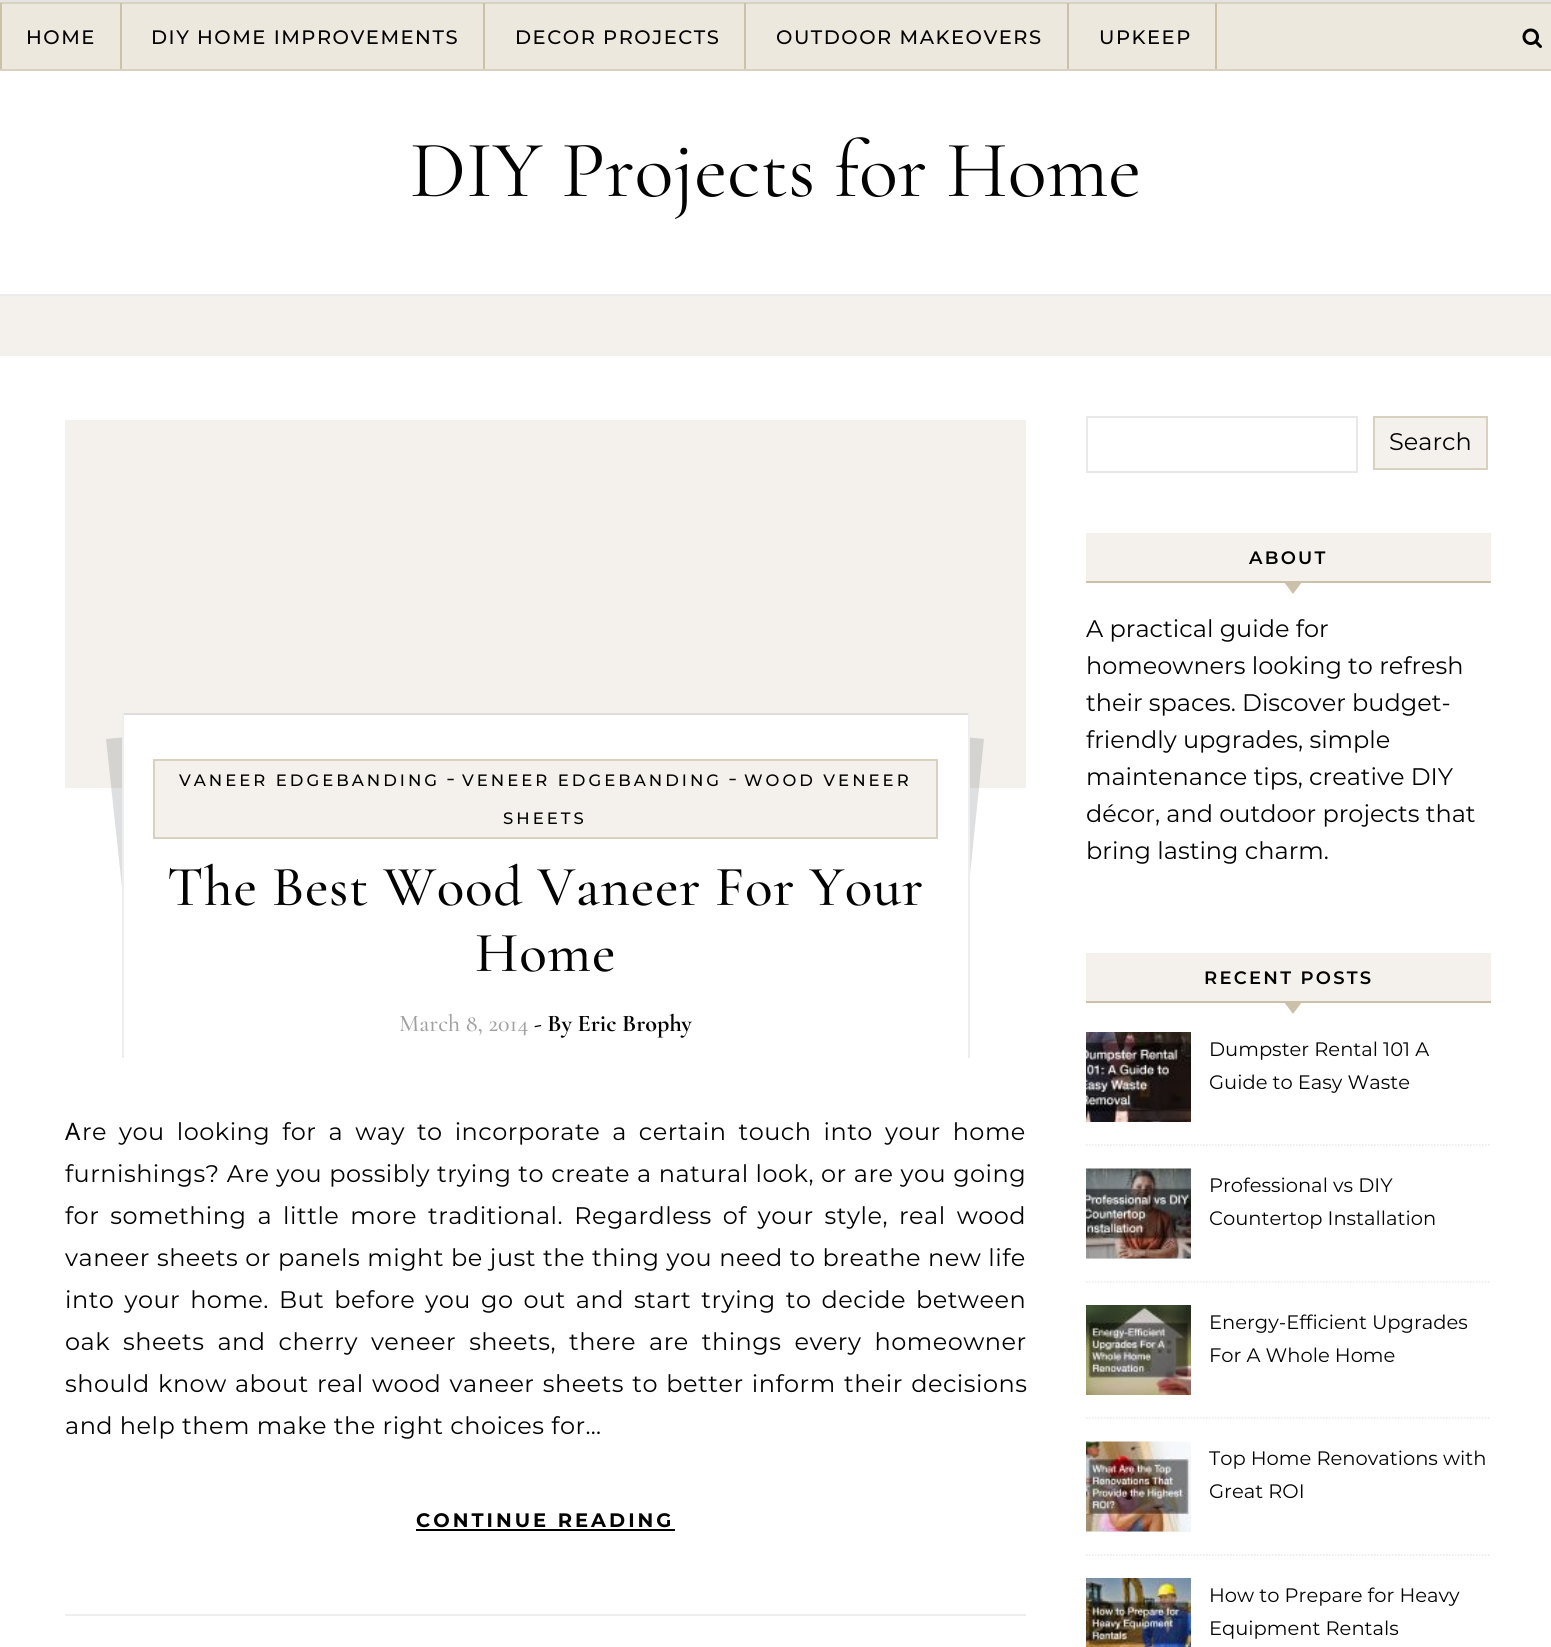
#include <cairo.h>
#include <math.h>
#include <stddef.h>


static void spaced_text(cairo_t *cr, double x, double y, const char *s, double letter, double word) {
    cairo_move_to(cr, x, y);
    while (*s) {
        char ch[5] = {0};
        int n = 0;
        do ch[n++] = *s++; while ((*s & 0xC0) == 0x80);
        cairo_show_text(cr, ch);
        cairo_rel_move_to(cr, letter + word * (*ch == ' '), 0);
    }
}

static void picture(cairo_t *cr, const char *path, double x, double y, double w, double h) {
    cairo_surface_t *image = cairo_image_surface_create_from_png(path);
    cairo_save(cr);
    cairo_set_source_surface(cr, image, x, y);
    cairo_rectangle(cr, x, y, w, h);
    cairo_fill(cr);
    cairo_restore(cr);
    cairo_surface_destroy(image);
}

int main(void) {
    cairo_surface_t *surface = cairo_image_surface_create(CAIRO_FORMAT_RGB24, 1551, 1647);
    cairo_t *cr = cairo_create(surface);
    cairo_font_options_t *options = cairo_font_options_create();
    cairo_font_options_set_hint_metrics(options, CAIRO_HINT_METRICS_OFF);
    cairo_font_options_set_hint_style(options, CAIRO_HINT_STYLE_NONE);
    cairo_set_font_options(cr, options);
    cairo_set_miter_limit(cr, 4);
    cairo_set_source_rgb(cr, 0.957, 0.945, 0.925);
    cairo_paint(cr);
    cairo_set_source_rgb(cr, 0.894, 0.894, 0.894);
    cairo_rectangle(cr, 0, 0, 1551, 2);
    cairo_fill(cr);
    cairo_set_source_rgb(cr, 0.929, 0.91, 0.871);
    cairo_rectangle(cr, 2, 4, 1549, 65);
    cairo_fill(cr);
    cairo_set_source_rgb(cr, 0.851, 0.82, 0.753);
    cairo_rectangle(cr, 0, 2, 1551, 2);
    cairo_fill(cr);
    cairo_rectangle(cr, 0, 69, 1551, 2);
    cairo_fill(cr);
    cairo_set_source_rgb(cr, 0.796, 0.753, 0.659);
    cairo_rectangle(cr, 120, 3, 2, 66);
    cairo_fill(cr);
    cairo_rectangle(cr, 0, 3, 2, 66);
    cairo_fill(cr);
    cairo_select_font_face(cr, "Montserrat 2 Thin", CAIRO_FONT_SLANT_NORMAL, CAIRO_FONT_WEIGHT_NORMAL);
    cairo_set_font_size(cr, 19.5);
    cairo_set_source_rgb(cr, 0.012, 0.012, 0.012);
    spaced_text(cr, 26, 44, "HOME", 1.5, 0);
    cairo_set_source_rgb(cr, 0.796, 0.753, 0.659);
    cairo_rectangle(cr, 483, 3, 2, 66);
    cairo_fill(cr);
    cairo_set_source_rgb(cr, 0.012, 0.012, 0.012);
    spaced_text(cr, 151, 44, "DIY HOME IMPROVEMENTS", 1.5, 0);
    cairo_set_source_rgb(cr, 0.796, 0.753, 0.659);
    cairo_rectangle(cr, 744, 3, 2, 66);
    cairo_fill(cr);
    cairo_set_source_rgb(cr, 0.012, 0.012, 0.012);
    spaced_text(cr, 515, 44, "DECOR PROJECTS", 1.5, 0);
    cairo_set_source_rgb(cr, 0.796, 0.753, 0.659);
    cairo_rectangle(cr, 1067, 3, 2, 66);
    cairo_fill(cr);
    cairo_set_source_rgb(cr, 0.012, 0.012, 0.012);
    spaced_text(cr, 776, 44, "OUTDOOR MAKEOVERS", 1.5, 0);
    cairo_set_source_rgb(cr, 0.796, 0.753, 0.659);
    cairo_rectangle(cr, 1215, 3, 2, 66);
    cairo_fill(cr);
    cairo_set_source_rgb(cr, 0.012, 0.012, 0.012);
    spaced_text(cr, 1099, 44, "UPKEEP", 1.5, 0);
    picture(cr, "img1.png", 1522, 28, 20, 20);
    cairo_set_source_rgb(cr, 1, 1, 1);
    cairo_rectangle(cr, 0, 71, 1551, 223);
    cairo_fill(cr);
    cairo_set_source_rgb(cr, 0.922, 0.922, 0.922);
    cairo_rectangle(cr, 0, 294, 1551, 2);
    cairo_fill(cr);
    cairo_select_font_face(cr, "Cormorant Garamond", CAIRO_FONT_SLANT_NORMAL, CAIRO_FONT_WEIGHT_NORMAL);
    cairo_set_font_size(cr, 81);
    cairo_set_source_rgb(cr, 0.012, 0.012, 0.012);
    cairo_move_to(cr, 410, 196);
    cairo_show_text(cr, "DIY Projects for Home");
    cairo_set_source_rgb(cr, 1, 1, 1);
    cairo_rectangle(cr, 0, 356, 1551, 1291);
    cairo_fill(cr);
    cairo_set_source_rgb(cr, 0.933, 0.933, 0.933);
    cairo_rectangle(cr, 65, 1614, 961, 2);
    cairo_fill(cr);
    cairo_set_source_rgb(cr, 0.957, 0.945, 0.925);
    cairo_rectangle(cr, 65, 420, 961, 368);
    cairo_fill(cr);
    cairo_set_source_rgba(cr, 0.153, 0.173, 0.192, 0.15);
    cairo_new_path(cr);
    cairo_move_to(cr, 106, 739);
    cairo_line_to(cr, 136, 736);
    cairo_line_to(cr, 159, 959);
    cairo_line_to(cr, 130, 962);
    cairo_close_path(cr);
    cairo_fill(cr);
    cairo_new_path(cr);
    cairo_move_to(cr, 955, 736);
    cairo_line_to(cr, 984, 739);
    cairo_line_to(cr, 961, 962);
    cairo_line_to(cr, 931, 959);
    cairo_close_path(cr);
    cairo_fill(cr);
    cairo_set_source_rgb(cr, 1, 1, 1);
    cairo_rectangle(cr, 124, 715, 844, 247);
    cairo_fill(cr);
    cairo_set_source_rgb(cr, 0.867, 0.867, 0.867);
    cairo_rectangle(cr, 122, 713, 847, 2);
    cairo_fill(cr);
    cairo_set_source_rgb(cr, 0.933, 0.933, 0.933);
    cairo_rectangle(cr, 968, 713, 2, 345);
    cairo_fill(cr);
    cairo_rectangle(cr, 122, 713, 2, 345);
    cairo_fill(cr);
    cairo_set_source_rgb(cr, 0.957, 0.945, 0.925);
    cairo_rectangle(cr, 154, 760, 783, 78);
    cairo_fill_preserve(cr);
    cairo_set_source_rgb(cr, 0.851, 0.82, 0.753);
    cairo_stroke(cr);
    cairo_select_font_face(cr, "Montserrat 2 Thin", CAIRO_FONT_SLANT_NORMAL, CAIRO_FONT_WEIGHT_NORMAL);
    cairo_set_font_size(cr, 16.5);
    cairo_set_source_rgb(cr, 0.012, 0.012, 0.012);
    spaced_text(cr, 179, 786, "VANEER EDGEBANDING", 3, 0);
    cairo_select_font_face(cr, "Montserrat Thin", CAIRO_FONT_SLANT_NORMAL, CAIRO_FONT_WEIGHT_NORMAL);
    cairo_set_font_size(cr, 24);
    cairo_move_to(cr, 446, 786);
    cairo_show_text(cr, "-");
    cairo_select_font_face(cr, "Montserrat 2 Thin", CAIRO_FONT_SLANT_NORMAL, CAIRO_FONT_WEIGHT_NORMAL);
    cairo_set_font_size(cr, 16.5);
    spaced_text(cr, 462, 786, "VENEER EDGEBANDING", 3, 0);
    cairo_select_font_face(cr, "Montserrat Thin", CAIRO_FONT_SLANT_NORMAL, CAIRO_FONT_WEIGHT_NORMAL);
    cairo_set_font_size(cr, 24);
    cairo_move_to(cr, 728, 786);
    cairo_show_text(cr, "-");
    cairo_select_font_face(cr, "Montserrat 2 Thin", CAIRO_FONT_SLANT_NORMAL, CAIRO_FONT_WEIGHT_NORMAL);
    cairo_set_font_size(cr, 16.5);
    spaced_text(cr, 744, 786, "WOOD VENEER", 3, 0);
    spaced_text(cr, 503, 824, "SHEETS", 3, 0);
    cairo_select_font_face(cr, "Cormorant Garamond Medium", CAIRO_FONT_SLANT_NORMAL, CAIRO_FONT_WEIGHT_NORMAL);
    cairo_set_font_size(cr, 57);
    spaced_text(cr, 167, 905, "The Best Wood Vaneer For Your", 0.75, 0);
    spaced_text(cr, 475, 971, "Home", 0.75, 0);
    cairo_set_font_size(cr, 24);
    cairo_set_source_rgb(cr, 0.631, 0.631, 0.631);
    cairo_move_to(cr, 399, 1031);
    cairo_show_text(cr, "March 8, 2014");
    cairo_select_font_face(cr, "Cormorant Garamond", CAIRO_FONT_SLANT_NORMAL, CAIRO_FONT_WEIGHT_BOLD);
    cairo_set_source_rgb(cr, 0.012, 0.012, 0.012);
    cairo_move_to(cr, 534, 1031);
    cairo_show_text(cr, "- By Eric Brophy");
    cairo_select_font_face(cr, "Noto Sans", CAIRO_FONT_SLANT_NORMAL, CAIRO_FONT_WEIGHT_NORMAL);
    spaced_text(cr, 65, 1140, "A", 0.48, 0);
    cairo_select_font_face(cr, "Montserrat Thin", CAIRO_FONT_SLANT_NORMAL, CAIRO_FONT_WEIGHT_NORMAL);
    spaced_text(cr, 82, 1140, "re you looking for a way to incorporate a certain touch into your home", 0.48, 5.25);
    spaced_text(cr, 65, 1182, "furnishings? Are you possibly trying to create a natural look, or are you going", 0.48, 0.25);
    spaced_text(cr, 65, 1224, "for something a little more traditional. Regardless of your style, real wood", 0.48, 4.25);
    spaced_text(cr, 65, 1266, "vaneer sheets or panels might be just the thing you need to breathe new life", 0.48, 0.3);
    spaced_text(cr, 65, 1308, "into your home. But before you go out and start trying to decide between", 0.48, 3.25);
    spaced_text(cr, 65, 1350, "oak sheets and cherry veneer sheets, there are things every homeowner", 0.48, 6.25);
    spaced_text(cr, 65, 1392, "should know about real wood vaneer sheets to better inform their decisions", 0.48, 1.5);
    spaced_text(cr, 65, 1434, "and help them make the right choices for…", 0.48, 0);
    cairo_select_font_face(cr, "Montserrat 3 Thin", CAIRO_FONT_SLANT_NORMAL, CAIRO_FONT_WEIGHT_NORMAL);
    cairo_set_font_size(cr, 19.5);
    spaced_text(cr, 416, 1527, "CONTINUE READING", 3, 0);
    cairo_set_source_rgb(cr, 0.004, 0.004, 0.004);
    cairo_rectangle(cr, 416, 1529, 259, 2);
    cairo_fill(cr);
    cairo_rectangle(cr, 1087, 417, 270, 55);
    cairo_set_source_rgb(cr, 0.91, 0.91, 0.91);
    cairo_stroke(cr);
    cairo_set_source_rgb(cr, 0.957, 0.945, 0.925);
    cairo_rectangle(cr, 1374, 417, 113, 52);
    cairo_fill_preserve(cr);
    cairo_set_source_rgb(cr, 0.851, 0.82, 0.753);
    cairo_stroke(cr);
    cairo_select_font_face(cr, "Montserrat Thin", CAIRO_FONT_SLANT_NORMAL, CAIRO_FONT_WEIGHT_NORMAL);
    cairo_set_font_size(cr, 24);
    cairo_set_source_rgb(cr, 0.012, 0.012, 0.012);
    cairo_move_to(cr, 1389, 450);
    cairo_show_text(cr, "Search");
    cairo_set_source_rgb(cr, 0.957, 0.945, 0.925);
    cairo_rectangle(cr, 1086, 533, 405, 48);
    cairo_fill(cr);
    cairo_set_source_rgb(cr, 0.796, 0.757, 0.667);
    cairo_rectangle(cr, 1086, 581, 405, 2);
    cairo_fill(cr);
    cairo_select_font_face(cr, "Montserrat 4 Thin", CAIRO_FONT_SLANT_NORMAL, CAIRO_FONT_WEIGHT_NORMAL);
    cairo_set_font_size(cr, 18);
    cairo_set_source_rgb(cr, 0.012, 0.012, 0.012);
    spaced_text(cr, 1249, 564, "ABOUT", 2.25, 0);
    cairo_set_source_rgb(cr, 0.796, 0.757, 0.667);
    cairo_new_path(cr);
    cairo_move_to(cr, 1284, 582);
    cairo_line_to(cr, 1302, 582);
    cairo_line_to(cr, 1293, 594);
    cairo_close_path(cr);
    cairo_fill(cr);
    cairo_select_font_face(cr, "Montserrat Thin", CAIRO_FONT_SLANT_NORMAL, CAIRO_FONT_WEIGHT_NORMAL);
    cairo_set_font_size(cr, 24);
    cairo_set_source_rgb(cr, 0.012, 0.012, 0.012);
    cairo_move_to(cr, 1086, 637);
    cairo_show_text(cr, "A practical guide for");
    cairo_move_to(cr, 1086, 674);
    cairo_show_text(cr, "homeowners looking to refresh");
    cairo_move_to(cr, 1086, 711);
    cairo_show_text(cr, "their spaces. Discover budget-");
    cairo_move_to(cr, 1086, 748);
    cairo_show_text(cr, "friendly upgrades, simple");
    cairo_move_to(cr, 1086, 785);
    cairo_show_text(cr, "maintenance tips, creative DIY");
    cairo_move_to(cr, 1086, 822);
    cairo_show_text(cr, "décor, and outdoor projects that");
    cairo_move_to(cr, 1086, 859);
    cairo_show_text(cr, "bring lasting charm.");
    cairo_set_source_rgb(cr, 0.957, 0.945, 0.925);
    cairo_rectangle(cr, 1086, 953, 405, 48);
    cairo_fill(cr);
    cairo_set_source_rgb(cr, 0.796, 0.757, 0.667);
    cairo_rectangle(cr, 1086, 1001, 405, 2);
    cairo_fill(cr);
    cairo_select_font_face(cr, "Montserrat 4 Thin", CAIRO_FONT_SLANT_NORMAL, CAIRO_FONT_WEIGHT_NORMAL);
    cairo_set_font_size(cr, 18);
    cairo_set_source_rgb(cr, 0.012, 0.012, 0.012);
    spaced_text(cr, 1204, 984, "RECENT POSTS", 2.25, 0);
    cairo_set_source_rgb(cr, 0.796, 0.757, 0.667);
    cairo_new_path(cr);
    cairo_move_to(cr, 1284, 1002);
    cairo_line_to(cr, 1302, 1002);
    cairo_line_to(cr, 1293, 1014);
    cairo_close_path(cr);
    cairo_fill(cr);
    cairo_new_path(cr);
    cairo_move_to(cr, 1086, 1145);
    cairo_line_to(cr, 1491, 1145);
    cairo_set_source_rgb(cr, 0.91, 0.91, 0.91);
    cairo_set_line_width(cr, 1.5);
    cairo_set_dash(cr, (double[]){1.5, 1.5}, 2, 0);
    cairo_stroke(cr);
    picture(cr, "img2.png", 1086, 1032, 105, 90);
    cairo_select_font_face(cr, "Montserrat Thin", CAIRO_FONT_SLANT_NORMAL, CAIRO_FONT_WEIGHT_NORMAL);
    cairo_set_font_size(cr, 19.5);
    cairo_set_source_rgb(cr, 0.012, 0.012, 0.012);
    cairo_move_to(cr, 1209, 1056);
    cairo_show_text(cr, "Dumpster Rental 101 A");
    cairo_move_to(cr, 1209, 1089);
    cairo_show_text(cr, "Guide to Easy Waste");
    cairo_new_path(cr);
    cairo_move_to(cr, 1086, 1282);
    cairo_line_to(cr, 1491, 1282);
    cairo_set_source_rgb(cr, 0.91, 0.91, 0.91);
    cairo_stroke(cr);
    cairo_set_source_rgb(cr, 0.949, 0.949, 0.949);
    cairo_rectangle(cr, 1086, 1258, 105, 1);
    cairo_fill(cr);
    picture(cr, "img3.png", 1086, 1168, 105, 91);
    cairo_set_source_rgb(cr, 0.012, 0.012, 0.012);
    cairo_move_to(cr, 1209, 1192);
    cairo_show_text(cr, "Professional vs DIY");
    cairo_move_to(cr, 1209, 1225);
    cairo_show_text(cr, "Countertop Installation");
    cairo_new_path(cr);
    cairo_move_to(cr, 1086, 1418);
    cairo_line_to(cr, 1491, 1418);
    cairo_set_source_rgb(cr, 0.91, 0.91, 0.91);
    cairo_stroke(cr);
    picture(cr, "img4.png", 1086, 1305, 105, 90);
    cairo_set_source_rgb(cr, 0.012, 0.012, 0.012);
    cairo_move_to(cr, 1209, 1329);
    cairo_show_text(cr, "Energy-Efficient Upgrades");
    cairo_move_to(cr, 1209, 1362);
    cairo_show_text(cr, "For A Whole Home");
    cairo_new_path(cr);
    cairo_move_to(cr, 1086, 1555);
    cairo_line_to(cr, 1491, 1555);
    cairo_set_source_rgb(cr, 0.91, 0.91, 0.91);
    cairo_stroke(cr);
    cairo_set_source_rgb(cr, 0.949, 0.949, 0.949);
    cairo_rectangle(cr, 1086, 1531, 105, 1);
    cairo_fill(cr);
    picture(cr, "img5.png", 1086, 1441, 105, 91);
    cairo_set_source_rgb(cr, 0.012, 0.012, 0.012);
    cairo_move_to(cr, 1209, 1465);
    cairo_show_text(cr, "Top Home Renovations with");
    cairo_move_to(cr, 1209, 1498);
    cairo_show_text(cr, "Great ROI");
    picture(cr, "img6.png", 1086, 1578, 105, 69);
    cairo_move_to(cr, 1209, 1602);
    cairo_show_text(cr, "How to Prepare for Heavy");
    cairo_move_to(cr, 1209, 1635);
    cairo_show_text(cr, "Equipment Rentals");
    cairo_surface_write_to_png(surface, "page.png");
    cairo_font_options_destroy(options);
    cairo_destroy(cr);
    cairo_surface_destroy(surface);
    return 0;
}
